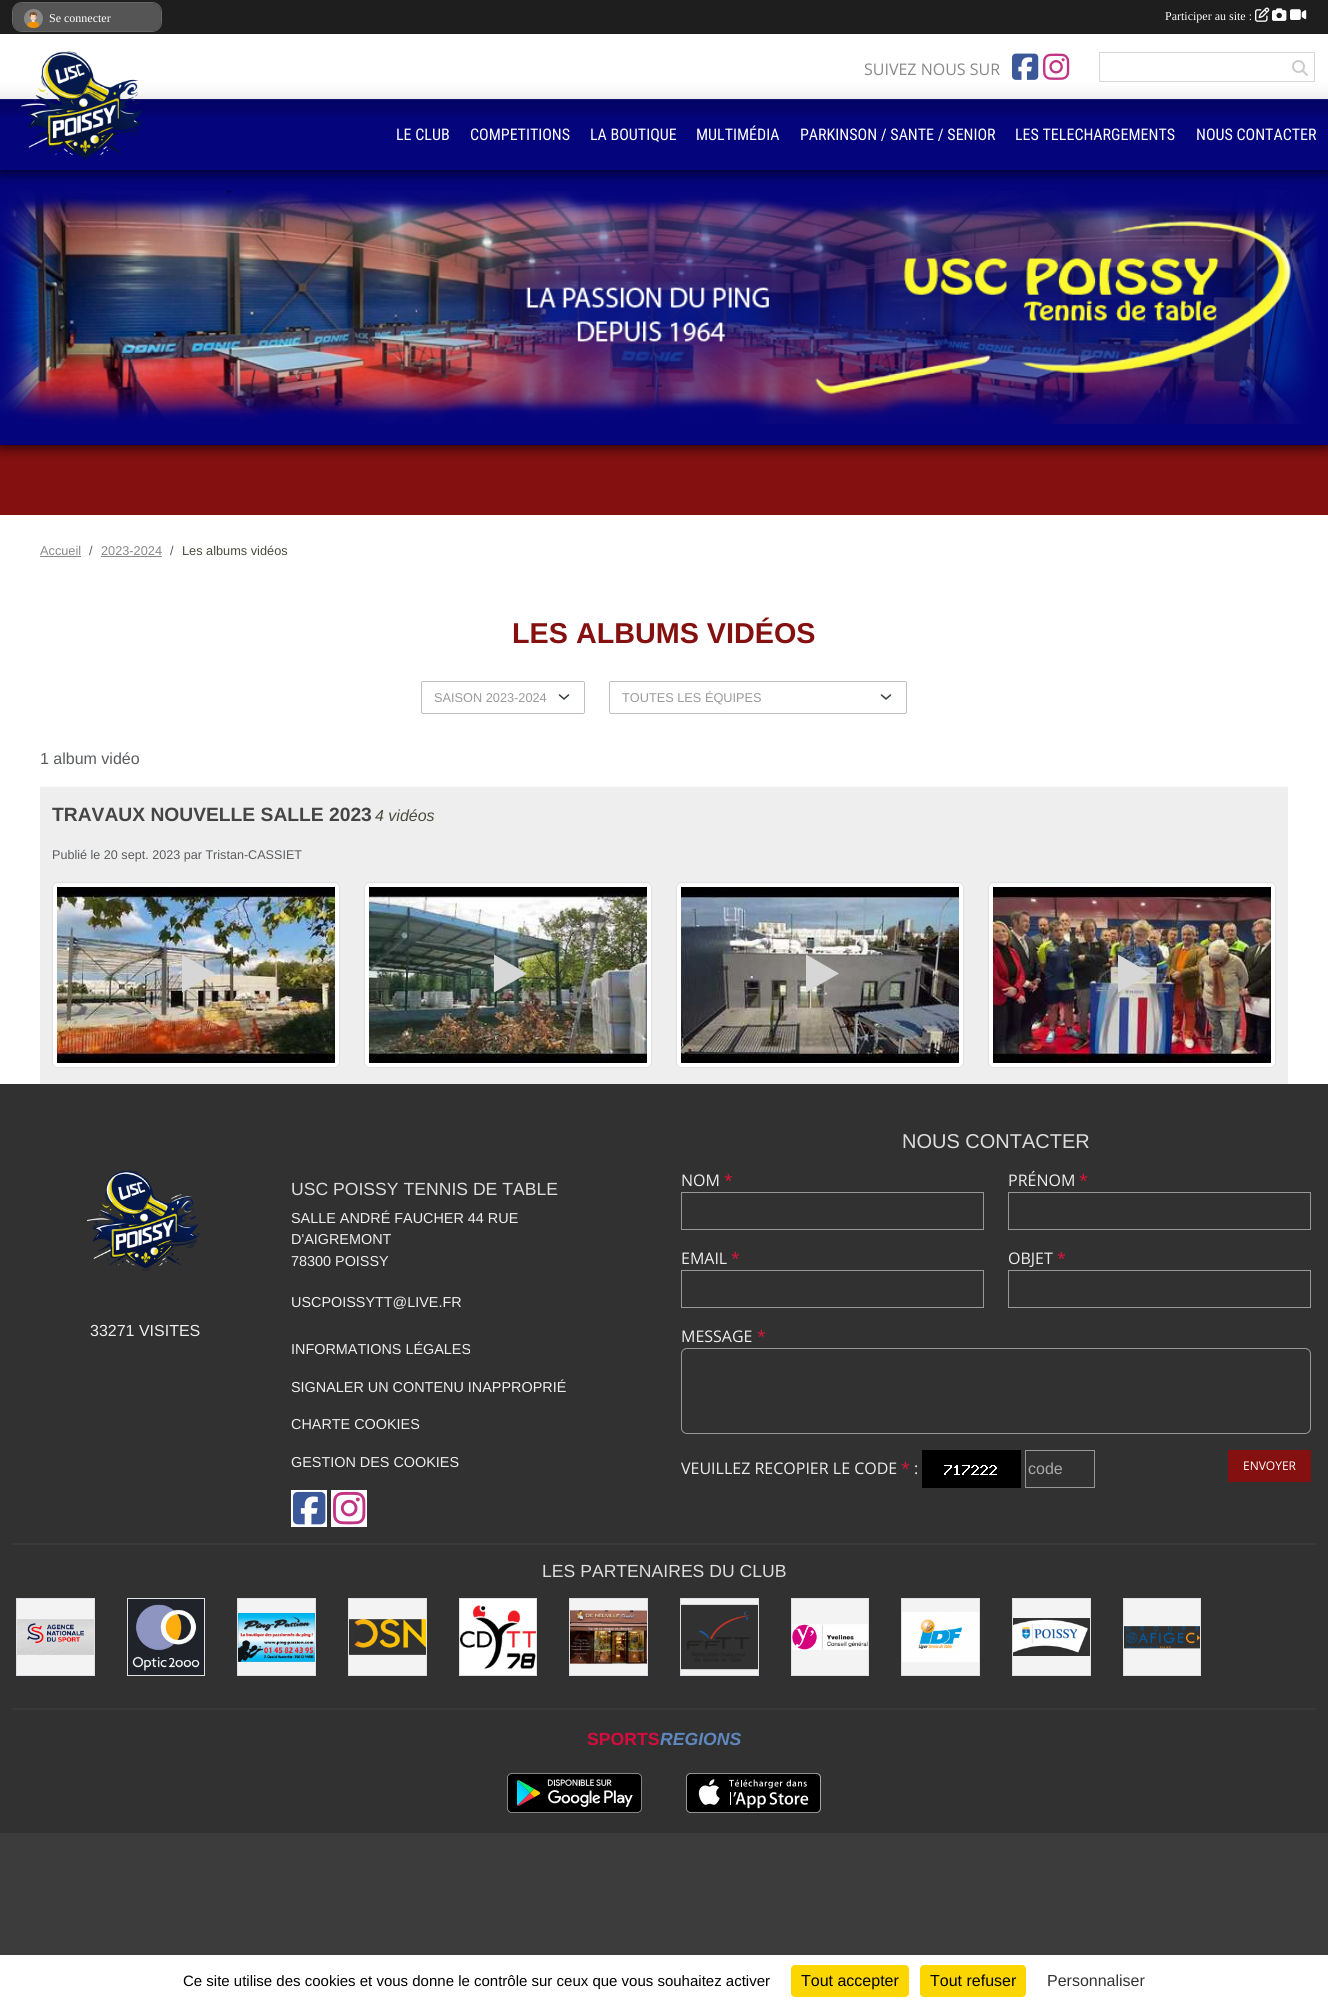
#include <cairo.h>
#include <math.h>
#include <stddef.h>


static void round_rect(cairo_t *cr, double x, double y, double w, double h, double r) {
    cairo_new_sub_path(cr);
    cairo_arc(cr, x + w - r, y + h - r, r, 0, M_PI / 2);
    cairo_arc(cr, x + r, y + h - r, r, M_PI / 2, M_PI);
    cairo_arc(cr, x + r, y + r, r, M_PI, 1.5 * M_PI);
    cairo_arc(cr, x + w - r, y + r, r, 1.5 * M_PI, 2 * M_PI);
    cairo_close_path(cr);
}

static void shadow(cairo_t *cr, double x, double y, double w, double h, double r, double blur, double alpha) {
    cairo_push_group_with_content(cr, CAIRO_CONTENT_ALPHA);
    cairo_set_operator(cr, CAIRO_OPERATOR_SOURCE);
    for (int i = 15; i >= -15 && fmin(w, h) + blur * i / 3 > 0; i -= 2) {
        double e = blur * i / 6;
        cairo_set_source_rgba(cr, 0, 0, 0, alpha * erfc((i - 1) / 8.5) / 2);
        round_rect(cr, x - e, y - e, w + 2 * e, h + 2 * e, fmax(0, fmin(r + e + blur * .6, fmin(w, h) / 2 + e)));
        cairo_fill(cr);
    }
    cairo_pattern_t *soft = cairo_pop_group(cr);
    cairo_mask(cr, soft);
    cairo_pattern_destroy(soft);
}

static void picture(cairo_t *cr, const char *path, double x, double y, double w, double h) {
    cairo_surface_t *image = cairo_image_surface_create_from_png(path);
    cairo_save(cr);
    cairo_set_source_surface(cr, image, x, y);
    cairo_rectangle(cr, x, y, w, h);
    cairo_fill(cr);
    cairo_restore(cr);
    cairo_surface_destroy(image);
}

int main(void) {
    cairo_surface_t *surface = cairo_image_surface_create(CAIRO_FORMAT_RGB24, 1328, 2007);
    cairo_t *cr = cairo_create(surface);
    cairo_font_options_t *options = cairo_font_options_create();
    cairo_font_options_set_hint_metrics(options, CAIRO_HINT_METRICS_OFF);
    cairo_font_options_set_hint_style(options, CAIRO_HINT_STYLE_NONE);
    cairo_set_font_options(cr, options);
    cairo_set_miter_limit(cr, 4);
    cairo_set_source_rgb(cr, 0.235, 0.235, 0.239);
    cairo_paint(cr);
    cairo_set_source_rgb(cr, 0.522, 0.063, 0.063);
    cairo_rectangle(cr, 0, 445, 1328, 70);
    cairo_fill(cr);
    cairo_set_source_rgb(cr, 0, 0, 0);
    shadow(cr, 0, 170, 1328, 275, 0, 7.5, 1);
    cairo_set_source_rgb(cr, 0.016, 0.016, 0.49);
    cairo_rectangle(cr, 0, 170, 1328, 275);
    cairo_fill(cr);
    picture(cr, "img10.png", 0, 191, 1318, 233);
    cairo_set_source_rgb(cr, 0, 0, 0);
    shadow(cr, 0, 34, 1328, 136, 0, 7.5, 1);
    cairo_set_source_rgb(cr, 0.118, 0.118, 0.118);
    cairo_rectangle(cr, 0, 0, 1328, 34);
    cairo_fill(cr);
    round_rect(cr, 12.5, 2.5, 149, 29, 9.5);
    cairo_set_source_rgb(cr, 0.4, 0.4, 0.4);
    cairo_set_line_width(cr, 1);
    cairo_stroke(cr);
    cairo_set_source_rgb(cr, 0.333, 0.333, 0.333);
    round_rect(cr, 13, 3, 148, 28, 9);
    cairo_fill(cr);
    picture(cr, "img1.png", 24, 9, 19, 19);
    cairo_select_font_face(cr, "Liberation Serif", CAIRO_FONT_SLANT_NORMAL, CAIRO_FONT_WEIGHT_NORMAL);
    cairo_set_font_size(cr, 12);
    cairo_set_source_rgb(cr, 1, 1, 1);
    cairo_move_to(cr, 49, 22);
    cairo_show_text(cr, "Se connecter");
    cairo_move_to(cr, 1165, 20);
    cairo_show_text(cr, "Participer au site :");
    picture(cr, "img2.png", 1255, 7, 15, 15);
    picture(cr, "img3.png", 1272, 8, 15, 13);
    picture(cr, "img4.png", 1290, 9, 17, 11);
    cairo_set_source_rgb(cr, 0.016, 0.016, 0.49);
    cairo_rectangle(cr, 0, 99, 1328, 71);
    cairo_fill(cr);
    picture(cr, "img5.png", 0, 34, 1328, 83);
    picture(cr, "img6.png", 21, 51, 123, 109);
    cairo_select_font_face(cr, "Open Sans", CAIRO_FONT_SLANT_NORMAL, CAIRO_FONT_WEIGHT_NORMAL);
    cairo_set_font_size(cr, 16);
    cairo_set_source_rgb(cr, 0.533, 0.533, 0.533);
    cairo_move_to(cr, 864, 75);
    cairo_show_text(cr, "SUIVEZ NOUS SUR");
    picture(cr, "img7.png", 1012, 53, 27, 27);
    picture(cr, "img8.png", 1043, 53, 27, 27);
    cairo_rectangle(cr, 1099.5, 52.5, 215, 29);
    cairo_set_source_rgb(cr, 0.847, 0.847, 0.847);
    cairo_stroke(cr);
    picture(cr, "img9.png", 1292, 60, 16, 16);
    cairo_select_font_face(cr, "Roboto Condensed", CAIRO_FONT_SLANT_NORMAL, CAIRO_FONT_WEIGHT_NORMAL);
    cairo_set_source_rgb(cr, 1, 1, 1);
    cairo_move_to(cr, 396, 140);
    cairo_show_text(cr, "LE CLUB");
    cairo_move_to(cr, 470, 140);
    cairo_show_text(cr, "COMPETITIONS");
    cairo_move_to(cr, 590, 140);
    cairo_show_text(cr, "LA BOUTIQUE");
    cairo_move_to(cr, 696, 140);
    cairo_show_text(cr, "MULTIMÉDIA");
    cairo_move_to(cr, 800, 140);
    cairo_show_text(cr, "PARKINSON / SANTE / SENIOR");
    cairo_move_to(cr, 1015, 140);
    cairo_show_text(cr, "LES TELECHARGEMENTS");
    cairo_move_to(cr, 1196, 140);
    cairo_show_text(cr, "NOUS CONTACTER");
    cairo_rectangle(cr, 0, 515, 1328, 569);
    cairo_fill(cr);
    cairo_select_font_face(cr, "Liberation Sans", CAIRO_FONT_SLANT_NORMAL, CAIRO_FONT_WEIGHT_NORMAL);
    cairo_set_font_size(cr, 12.75);
    cairo_set_source_rgb(cr, 0.533, 0.533, 0.533);
    cairo_move_to(cr, 40, 555);
    cairo_show_text(cr, "Accueil");
    cairo_rectangle(cr, 40, 556, 41, 1);
    cairo_fill(cr);
    cairo_set_source_rgb(cr, 0.349, 0.361, 0.373);
    cairo_move_to(cr, 89, 555);
    cairo_show_text(cr, "/");
    cairo_set_source_rgb(cr, 0.533, 0.533, 0.533);
    cairo_move_to(cr, 101, 555);
    cairo_show_text(cr, "2023-2024");
    cairo_rectangle(cr, 101, 556, 61, 1);
    cairo_fill(cr);
    cairo_set_source_rgb(cr, 0.349, 0.361, 0.373);
    cairo_move_to(cr, 170, 555);
    cairo_show_text(cr, "/");
    cairo_set_source_rgb(cr, 0.29, 0.29, 0.243);
    cairo_move_to(cr, 182, 555);
    cairo_show_text(cr, "Les albums vidéos");
    cairo_select_font_face(cr, "Liberation Sans", CAIRO_FONT_SLANT_NORMAL, CAIRO_FONT_WEIGHT_BOLD);
    cairo_set_font_size(cr, 28.75);
    cairo_set_source_rgb(cr, 0.522, 0.063, 0.063);
    cairo_move_to(cr, 512, 643);
    cairo_show_text(cr, "LES ALBUMS VIDÉOS");
    cairo_new_path(cr);
    cairo_move_to(cr, 559.5, 695);
    cairo_line_to(cr, 564, 699);
    cairo_line_to(cr, 568.5, 695);
    cairo_set_source_rgb(cr, 0.204, 0.227, 0.251);
    cairo_set_line_width(cr, 1.5);
    cairo_set_line_cap(cr, CAIRO_LINE_CAP_ROUND);
    cairo_set_line_join(cr, CAIRO_LINE_JOIN_ROUND);
    cairo_stroke(cr);
    round_rect(cr, 421.5, 681.5, 163, 32, 1.5);
    cairo_set_source_rgb(cr, 0.753, 0.753, 0.753);
    cairo_set_line_width(cr, 1);
    cairo_set_line_cap(cr, CAIRO_LINE_CAP_BUTT);
    cairo_set_line_join(cr, CAIRO_LINE_JOIN_MITER);
    cairo_stroke(cr);
    cairo_select_font_face(cr, "Liberation Sans", CAIRO_FONT_SLANT_NORMAL, CAIRO_FONT_WEIGHT_NORMAL);
    cairo_set_font_size(cr, 12.75);
    cairo_set_source_rgb(cr, 0.604, 0.604, 0.604);
    cairo_move_to(cr, 434, 702);
    cairo_show_text(cr, "SAISON 2023-2024");
    cairo_new_path(cr);
    cairo_move_to(cr, 881.5, 695);
    cairo_line_to(cr, 886, 699);
    cairo_line_to(cr, 890.5, 695);
    cairo_set_source_rgb(cr, 0.204, 0.227, 0.251);
    cairo_set_line_width(cr, 1.5);
    cairo_set_line_cap(cr, CAIRO_LINE_CAP_ROUND);
    cairo_set_line_join(cr, CAIRO_LINE_JOIN_ROUND);
    cairo_stroke(cr);
    round_rect(cr, 609.5, 681.5, 297, 32, 1.5);
    cairo_set_source_rgb(cr, 0.753, 0.753, 0.753);
    cairo_set_line_width(cr, 1);
    cairo_set_line_cap(cr, CAIRO_LINE_CAP_BUTT);
    cairo_set_line_join(cr, CAIRO_LINE_JOIN_MITER);
    cairo_stroke(cr);
    cairo_set_source_rgb(cr, 0.604, 0.604, 0.604);
    cairo_move_to(cr, 622, 702);
    cairo_show_text(cr, "TOUTES LES ÉQUIPES");
    cairo_set_font_size(cr, 16);
    cairo_set_source_rgb(cr, 0.349, 0.361, 0.373);
    cairo_move_to(cr, 40, 764);
    cairo_show_text(cr, "1 album vidéo");
    cairo_set_source_rgb(cr, 0.933, 0.933, 0.933);
    cairo_rectangle(cr, 40, 787, 1248, 297);
    cairo_fill(cr);
    cairo_select_font_face(cr, "Liberation Sans", CAIRO_FONT_SLANT_NORMAL, CAIRO_FONT_WEIGHT_BOLD);
    cairo_set_font_size(cr, 19.25);
    cairo_set_source_rgb(cr, 0.271, 0.271, 0.271);
    cairo_move_to(cr, 52, 821);
    cairo_show_text(cr, "TRAVAUX NOUVELLE SALLE 2023");
    cairo_select_font_face(cr, "Liberation Sans", CAIRO_FONT_SLANT_ITALIC, CAIRO_FONT_WEIGHT_NORMAL);
    cairo_set_font_size(cr, 16);
    cairo_set_source_rgb(cr, 0.29, 0.29, 0.243);
    cairo_move_to(cr, 375, 821);
    cairo_show_text(cr, "4 vidéos");
    cairo_select_font_face(cr, "Liberation Sans", CAIRO_FONT_SLANT_NORMAL, CAIRO_FONT_WEIGHT_NORMAL);
    cairo_set_font_size(cr, 12.6);
    cairo_set_source_rgb(cr, 0.349, 0.361, 0.373);
    cairo_move_to(cr, 52, 859);
    cairo_show_text(cr, "Publié le 20 sept. 2023 par Tristan-CASSIET");
    cairo_set_source_rgb(cr, 1, 1, 1);
    round_rect(cr, 52.5, 882.5, 287, 185, 5.5);
    cairo_fill_preserve(cr);
    cairo_set_source_rgb(cr, 0.871, 0.886, 0.902);
    cairo_stroke(cr);
    picture(cr, "img11.png", 57, 887, 278, 176);
    cairo_set_source_rgb(cr, 0.839, 0.839, 0.839);
    cairo_new_path(cr);
    cairo_move_to(cr, 215, 973.5);
    cairo_line_to(cr, 182, 954.5);
    cairo_line_to(cr, 182, 992.5);
    cairo_close_path(cr);
    cairo_fill(cr);
    cairo_set_source_rgb(cr, 1, 1, 1);
    round_rect(cr, 364.5, 882.5, 287, 185, 5.5);
    cairo_fill_preserve(cr);
    cairo_set_source_rgb(cr, 0.871, 0.886, 0.902);
    cairo_stroke(cr);
    picture(cr, "img12.png", 369, 887, 278, 176);
    cairo_set_source_rgb(cr, 0.839, 0.839, 0.839);
    cairo_new_path(cr);
    cairo_move_to(cr, 527, 973.5);
    cairo_line_to(cr, 494, 954.5);
    cairo_line_to(cr, 494, 992.5);
    cairo_close_path(cr);
    cairo_fill(cr);
    cairo_set_source_rgb(cr, 1, 1, 1);
    round_rect(cr, 676.5, 882.5, 287, 185, 5.5);
    cairo_fill_preserve(cr);
    cairo_set_source_rgb(cr, 0.871, 0.886, 0.902);
    cairo_stroke(cr);
    picture(cr, "img13.png", 681, 887, 278, 176);
    cairo_set_source_rgb(cr, 0.839, 0.839, 0.839);
    cairo_new_path(cr);
    cairo_move_to(cr, 839, 973.5);
    cairo_line_to(cr, 806, 954.5);
    cairo_line_to(cr, 806, 992.5);
    cairo_close_path(cr);
    cairo_fill(cr);
    cairo_set_source_rgb(cr, 1, 1, 1);
    round_rect(cr, 988.5, 882.5, 287, 185, 5.5);
    cairo_fill_preserve(cr);
    cairo_set_source_rgb(cr, 0.871, 0.886, 0.902);
    cairo_stroke(cr);
    picture(cr, "img14.png", 993, 887, 278, 176);
    cairo_set_source_rgb(cr, 0.839, 0.839, 0.839);
    cairo_new_path(cr);
    cairo_move_to(cr, 1151, 973.5);
    cairo_line_to(cr, 1118, 954.5);
    cairo_line_to(cr, 1118, 992.5);
    cairo_close_path(cr);
    cairo_fill(cr);
    cairo_set_source_rgb(cr, 0.192, 0.192, 0.192);
    cairo_rectangle(cr, 0, 1084, 1328, 749);
    cairo_fill(cr);
    picture(cr, "img15.png", 86, 1170, 114, 101);
    cairo_set_font_size(cr, 16);
    cairo_set_source_rgb(cr, 0.933, 0.933, 0.933);
    cairo_move_to(cr, 90, 1336);
    cairo_show_text(cr, "33271 VISITES");
    cairo_set_font_size(cr, 17.6);
    cairo_set_source_rgb(cr, 0.867, 0.867, 0.867);
    cairo_move_to(cr, 291, 1195);
    cairo_show_text(cr, "USC POISSY TENNIS DE TABLE");
    cairo_set_font_size(cr, 14.4);
    cairo_set_source_rgb(cr, 0.933, 0.933, 0.933);
    cairo_move_to(cr, 291, 1223);
    cairo_show_text(cr, "SALLE ANDRÉ FAUCHER 44 RUE");
    cairo_move_to(cr, 291, 1244);
    cairo_show_text(cr, "D'AIGREMONT");
    cairo_move_to(cr, 291, 1266);
    cairo_show_text(cr, "78300 POISSY");
    cairo_move_to(cr, 291, 1307);
    cairo_show_text(cr, "USCPOISSYTT@LIVE.FR");
    cairo_move_to(cr, 291, 1354);
    cairo_show_text(cr, "INFORMATIONS LÉGALES");
    cairo_move_to(cr, 291, 1392);
    cairo_show_text(cr, "SIGNALER UN CONTENU INAPPROPRIÉ");
    cairo_move_to(cr, 291, 1429);
    cairo_show_text(cr, "CHARTE COOKIES");
    cairo_move_to(cr, 291, 1467);
    cairo_show_text(cr, "GESTION DES COOKIES");
    cairo_set_source_rgb(cr, 1, 1, 1);
    cairo_rectangle(cr, 291, 1490, 36, 37);
    cairo_fill(cr);
    picture(cr, "img16.png", 293, 1491, 33, 34);
    cairo_rectangle(cr, 331, 1490, 36, 37);
    cairo_fill(cr);
    picture(cr, "img17.png", 333, 1491, 33, 34);
    cairo_set_font_size(cr, 20);
    cairo_set_source_rgb(cr, 0.867, 0.867, 0.867);
    cairo_move_to(cr, 902, 1148);
    cairo_show_text(cr, "NOUS CONTACTER");
    cairo_select_font_face(cr, "Open Sans", CAIRO_FONT_SLANT_NORMAL, CAIRO_FONT_WEIGHT_NORMAL);
    cairo_set_font_size(cr, 16);
    cairo_set_source_rgb(cr, 0.933, 0.933, 0.933);
    cairo_move_to(cr, 681, 1186);
    cairo_show_text(cr, "NOM");
    cairo_set_source_rgb(cr, 0.894, 0.075, 0.227);
    cairo_move_to(cr, 724, 1186);
    cairo_show_text(cr, "*");
    cairo_rectangle(cr, 681.5, 1192.5, 302, 37);
    cairo_set_source_rgb(cr, 0.596, 0.596, 0.596);
    cairo_stroke(cr);
    cairo_set_source_rgb(cr, 0.933, 0.933, 0.933);
    cairo_move_to(cr, 681, 1264);
    cairo_show_text(cr, "EMAIL");
    cairo_set_source_rgb(cr, 0.894, 0.075, 0.227);
    cairo_move_to(cr, 731, 1264);
    cairo_show_text(cr, "*");
    cairo_rectangle(cr, 681.5, 1270.5, 302, 37);
    cairo_set_source_rgb(cr, 0.596, 0.596, 0.596);
    cairo_stroke(cr);
    cairo_set_source_rgb(cr, 0.933, 0.933, 0.933);
    cairo_move_to(cr, 1008, 1186);
    cairo_show_text(cr, "PRÉNOM");
    cairo_set_source_rgb(cr, 0.894, 0.075, 0.227);
    cairo_move_to(cr, 1079, 1186);
    cairo_show_text(cr, "*");
    cairo_rectangle(cr, 1008.5, 1192.5, 302, 37);
    cairo_set_source_rgb(cr, 0.596, 0.596, 0.596);
    cairo_stroke(cr);
    cairo_set_source_rgb(cr, 0.933, 0.933, 0.933);
    cairo_move_to(cr, 1008, 1264);
    cairo_show_text(cr, "OBJET");
    cairo_set_source_rgb(cr, 0.894, 0.075, 0.227);
    cairo_move_to(cr, 1057, 1264);
    cairo_show_text(cr, "*");
    cairo_rectangle(cr, 1008.5, 1270.5, 302, 37);
    cairo_set_source_rgb(cr, 0.596, 0.596, 0.596);
    cairo_stroke(cr);
    cairo_set_source_rgb(cr, 0.933, 0.933, 0.933);
    cairo_move_to(cr, 681, 1342);
    cairo_show_text(cr, "MESSAGE");
    cairo_set_source_rgb(cr, 0.894, 0.075, 0.227);
    cairo_move_to(cr, 757, 1342);
    cairo_show_text(cr, "*");
    round_rect(cr, 681.5, 1348.5, 629, 85, 5.5);
    cairo_set_source_rgb(cr, 0.596, 0.596, 0.596);
    cairo_stroke(cr);
    cairo_set_source_rgb(cr, 0.933, 0.933, 0.933);
    cairo_move_to(cr, 681, 1474);
    cairo_show_text(cr, "VEUILLEZ RECOPIER LE CODE");
    cairo_set_source_rgb(cr, 0.894, 0.075, 0.227);
    cairo_move_to(cr, 901, 1474);
    cairo_show_text(cr, "*");
    cairo_set_source_rgb(cr, 0.933, 0.933, 0.933);
    cairo_move_to(cr, 914, 1474);
    cairo_show_text(cr, ":");
    picture(cr, "img18.png", 922, 1450, 99, 38);
    cairo_rectangle(cr, 1025.5, 1450.5, 69, 37);
    cairo_set_source_rgb(cr, 0.596, 0.596, 0.596);
    cairo_stroke(cr);
    cairo_select_font_face(cr, "Liberation Sans", CAIRO_FONT_SLANT_NORMAL, CAIRO_FONT_WEIGHT_NORMAL);
    cairo_set_source_rgb(cr, 0.667, 0.667, 0.667);
    cairo_move_to(cr, 1028, 1474);
    cairo_show_text(cr, "code");
    cairo_set_source_rgb(cr, 0.522, 0.063, 0.063);
    cairo_rectangle(cr, 1228, 1450, 83, 32);
    cairo_fill(cr);
    cairo_select_font_face(cr, "Open Sans", CAIRO_FONT_SLANT_NORMAL, CAIRO_FONT_WEIGHT_NORMAL);
    cairo_set_font_size(cr, 12);
    cairo_set_source_rgb(cr, 1, 1, 1);
    cairo_move_to(cr, 1243, 1470);
    cairo_show_text(cr, "ENVOYER");
    cairo_set_source_rgb(cr, 0.224, 0.224, 0.224);
    cairo_rectangle(cr, 12, 1543, 1304, 2);
    cairo_fill(cr);
    cairo_select_font_face(cr, "Liberation Sans", CAIRO_FONT_SLANT_NORMAL, CAIRO_FONT_WEIGHT_NORMAL);
    cairo_set_font_size(cr, 17.6);
    cairo_set_source_rgb(cr, 0.867, 0.867, 0.867);
    cairo_move_to(cr, 542, 1577);
    cairo_show_text(cr, "LES PARTENAIRES DU CLUB");
    cairo_rectangle(cr, 16.5, 1598.5, 78, 77);
    cairo_set_source_rgb(cr, 0.871, 0.886, 0.902);
    cairo_stroke(cr);
    picture(cr, "img19.png", 17, 1599, 77, 76);
    cairo_rectangle(cr, 127.5, 1598.5, 77, 77);
    cairo_stroke(cr);
    picture(cr, "img20.png", 128, 1599, 76, 76);
    cairo_rectangle(cr, 237.5, 1598.5, 78, 77);
    cairo_stroke(cr);
    picture(cr, "img21.png", 238, 1599, 77, 76);
    cairo_rectangle(cr, 348.5, 1598.5, 78, 77);
    cairo_stroke(cr);
    picture(cr, "img22.png", 349, 1599, 77, 76);
    cairo_rectangle(cr, 459.5, 1598.5, 77, 77);
    cairo_stroke(cr);
    picture(cr, "img23.png", 460, 1599, 76, 76);
    cairo_rectangle(cr, 569.5, 1598.5, 78, 77);
    cairo_stroke(cr);
    picture(cr, "img24.png", 570, 1599, 77, 76);
    cairo_rectangle(cr, 680.5, 1598.5, 78, 77);
    cairo_stroke(cr);
    picture(cr, "img25.png", 681, 1599, 77, 76);
    cairo_rectangle(cr, 791.5, 1598.5, 77, 77);
    cairo_stroke(cr);
    picture(cr, "img26.png", 792, 1599, 76, 76);
    cairo_rectangle(cr, 901.5, 1598.5, 78, 77);
    cairo_stroke(cr);
    picture(cr, "img27.png", 902, 1599, 77, 76);
    cairo_rectangle(cr, 1012.5, 1598.5, 78, 77);
    cairo_stroke(cr);
    picture(cr, "img28.png", 1013, 1599, 77, 76);
    cairo_rectangle(cr, 1123.5, 1598.5, 77, 77);
    cairo_stroke(cr);
    picture(cr, "img29.png", 1124, 1599, 76, 76);
    cairo_set_source_rgb(cr, 0.224, 0.224, 0.224);
    cairo_rectangle(cr, 12, 1708, 1304, 2);
    cairo_fill(cr);
    cairo_select_font_face(cr, "Liberation Sans", CAIRO_FONT_SLANT_NORMAL, CAIRO_FONT_WEIGHT_BOLD);
    cairo_set_source_rgb(cr, 0.839, 0.047, 0.243);
    cairo_move_to(cr, 587, 1745);
    cairo_show_text(cr, "SPORTS");
    cairo_select_font_face(cr, "Liberation Sans", CAIRO_FONT_SLANT_ITALIC, CAIRO_FONT_WEIGHT_BOLD);
    cairo_set_source_rgb(cr, 0.373, 0.533, 0.753);
    cairo_move_to(cr, 660, 1745);
    cairo_show_text(cr, "REGIONS");
    picture(cr, "img30.png", 507, 1773, 135, 40);
    picture(cr, "img31.png", 686, 1773, 135, 40);
    cairo_set_source_rgb(cr, 1, 1, 1);
    cairo_rectangle(cr, 0, 1955, 1328, 52);
    cairo_fill(cr);
    cairo_select_font_face(cr, "Liberation Sans", CAIRO_FONT_SLANT_NORMAL, CAIRO_FONT_WEIGHT_NORMAL);
    cairo_set_font_size(cr, 15);
    cairo_set_source_rgb(cr, 0, 0, 0);
    cairo_move_to(cr, 183, 1986);
    cairo_show_text(cr, "Ce site utilise des cookies et vous donne le contrôle sur ceux que vous souhaitez activer");
    cairo_set_source_rgb(cr, 0.984, 0.839, 0);
    round_rect(cr, 791, 1965, 118, 32, 4);
    cairo_fill(cr);
    cairo_set_font_size(cr, 16);
    cairo_set_source_rgb(cr, 0, 0, 0);
    cairo_move_to(cr, 801, 1986);
    cairo_show_text(cr, "Tout accepter");
    cairo_set_source_rgb(cr, 0.984, 0.839, 0);
    round_rect(cr, 920, 1965, 106, 32, 4);
    cairo_fill(cr);
    cairo_set_source_rgb(cr, 0, 0, 0);
    cairo_move_to(cr, 930, 1986);
    cairo_show_text(cr, "Tout refuser");
    cairo_set_source_rgb(cr, 0.2, 0.2, 0.2);
    cairo_move_to(cr, 1047, 1986);
    cairo_show_text(cr, "Personnaliser");
    cairo_surface_write_to_png(surface, "page.png");
    cairo_font_options_destroy(options);
    cairo_destroy(cr);
    cairo_surface_destroy(surface);
    return 0;
}
